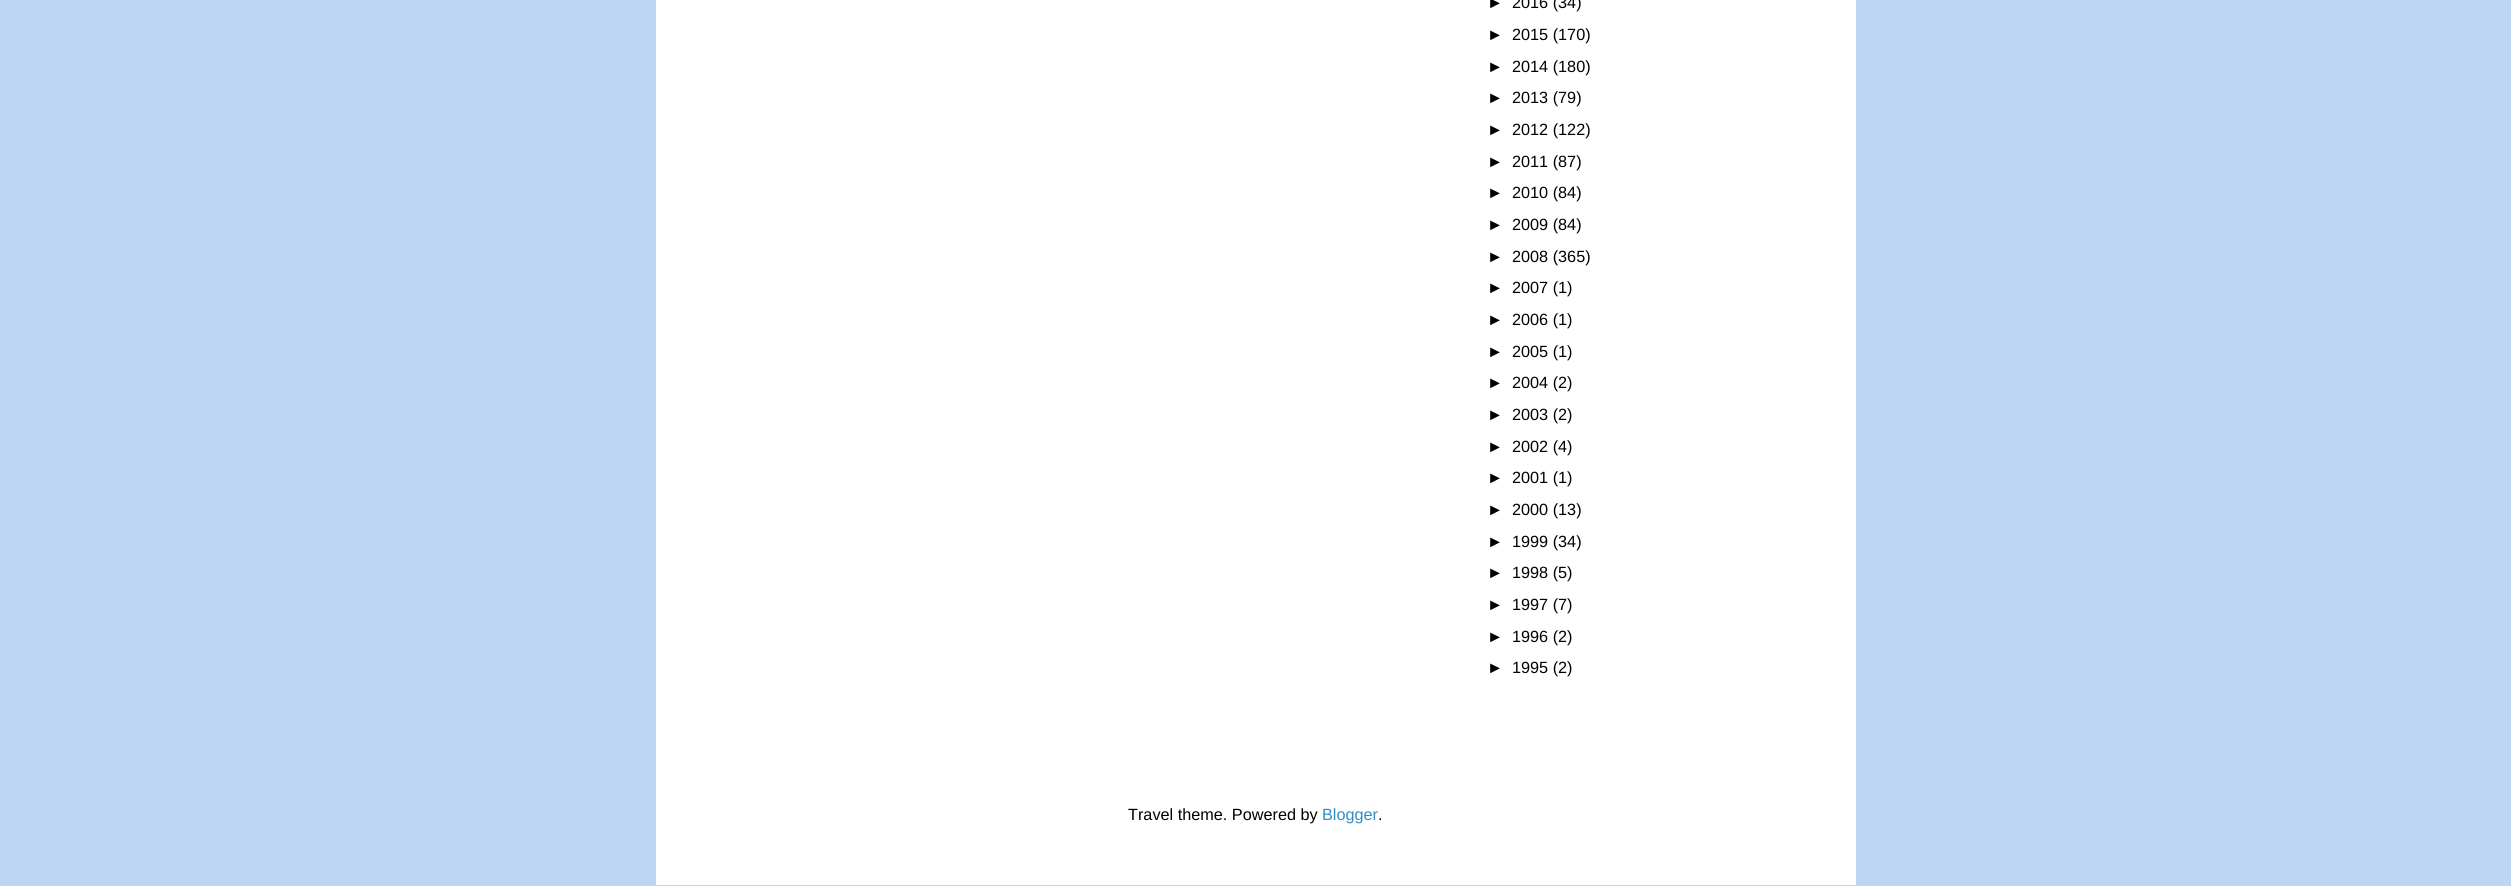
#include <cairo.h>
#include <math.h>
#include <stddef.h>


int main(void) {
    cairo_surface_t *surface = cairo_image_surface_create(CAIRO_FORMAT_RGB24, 2511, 886);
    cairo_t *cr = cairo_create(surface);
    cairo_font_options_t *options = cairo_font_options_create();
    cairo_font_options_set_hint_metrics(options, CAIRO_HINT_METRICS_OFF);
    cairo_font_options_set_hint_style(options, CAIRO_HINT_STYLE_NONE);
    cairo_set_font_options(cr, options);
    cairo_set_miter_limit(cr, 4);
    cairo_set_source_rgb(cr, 0.741, 0.839, 0.949);
    cairo_paint(cr);
    cairo_set_source_rgb(cr, 1, 1, 1);
    cairo_rectangle(cr, 656, 0, 1200, 885);
    cairo_fill(cr);
    cairo_select_font_face(cr, "Liberation Sans", CAIRO_FONT_SLANT_NORMAL, CAIRO_FONT_WEIGHT_NORMAL);
    cairo_set_font_size(cr, 16.25);
    cairo_set_source_rgb(cr, 0, 0, 0);
    cairo_move_to(cr, 1487, 8);
    cairo_show_text(cr, "►");
    cairo_move_to(cr, 1512, 8);
    cairo_show_text(cr, "2016 (34)");
    cairo_move_to(cr, 1487, 40);
    cairo_show_text(cr, "►");
    cairo_move_to(cr, 1512, 40);
    cairo_show_text(cr, "2015 (170)");
    cairo_move_to(cr, 1487, 72);
    cairo_show_text(cr, "►");
    cairo_move_to(cr, 1512, 72);
    cairo_show_text(cr, "2014 (180)");
    cairo_move_to(cr, 1487, 103);
    cairo_show_text(cr, "►");
    cairo_move_to(cr, 1512, 103);
    cairo_show_text(cr, "2013 (79)");
    cairo_move_to(cr, 1487, 135);
    cairo_show_text(cr, "►");
    cairo_move_to(cr, 1512, 135);
    cairo_show_text(cr, "2012 (122)");
    cairo_move_to(cr, 1487, 167);
    cairo_show_text(cr, "►");
    cairo_move_to(cr, 1512, 167);
    cairo_show_text(cr, "2011 (87)");
    cairo_move_to(cr, 1487, 198);
    cairo_show_text(cr, "►");
    cairo_move_to(cr, 1512, 198);
    cairo_show_text(cr, "2010 (84)");
    cairo_move_to(cr, 1487, 230);
    cairo_show_text(cr, "►");
    cairo_move_to(cr, 1512, 230);
    cairo_show_text(cr, "2009 (84)");
    cairo_move_to(cr, 1487, 262);
    cairo_show_text(cr, "►");
    cairo_move_to(cr, 1512, 262);
    cairo_show_text(cr, "2008 (365)");
    cairo_move_to(cr, 1487, 293);
    cairo_show_text(cr, "►");
    cairo_move_to(cr, 1512, 293);
    cairo_show_text(cr, "2007 (1)");
    cairo_move_to(cr, 1487, 325);
    cairo_show_text(cr, "►");
    cairo_move_to(cr, 1512, 325);
    cairo_show_text(cr, "2006 (1)");
    cairo_move_to(cr, 1487, 357);
    cairo_show_text(cr, "►");
    cairo_move_to(cr, 1512, 357);
    cairo_show_text(cr, "2005 (1)");
    cairo_move_to(cr, 1487, 388);
    cairo_show_text(cr, "►");
    cairo_move_to(cr, 1512, 388);
    cairo_show_text(cr, "2004 (2)");
    cairo_move_to(cr, 1487, 420);
    cairo_show_text(cr, "►");
    cairo_move_to(cr, 1512, 420);
    cairo_show_text(cr, "2003 (2)");
    cairo_move_to(cr, 1487, 452);
    cairo_show_text(cr, "►");
    cairo_move_to(cr, 1512, 452);
    cairo_show_text(cr, "2002 (4)");
    cairo_move_to(cr, 1487, 483);
    cairo_show_text(cr, "►");
    cairo_move_to(cr, 1512, 483);
    cairo_show_text(cr, "2001 (1)");
    cairo_move_to(cr, 1487, 515);
    cairo_show_text(cr, "►");
    cairo_move_to(cr, 1512, 515);
    cairo_show_text(cr, "2000 (13)");
    cairo_move_to(cr, 1487, 547);
    cairo_show_text(cr, "►");
    cairo_move_to(cr, 1512, 547);
    cairo_show_text(cr, "1999 (34)");
    cairo_move_to(cr, 1487, 578);
    cairo_show_text(cr, "►");
    cairo_move_to(cr, 1512, 578);
    cairo_show_text(cr, "1998 (5)");
    cairo_move_to(cr, 1487, 610);
    cairo_show_text(cr, "►");
    cairo_move_to(cr, 1512, 610);
    cairo_show_text(cr, "1997 (7)");
    cairo_move_to(cr, 1487, 642);
    cairo_show_text(cr, "►");
    cairo_move_to(cr, 1512, 642);
    cairo_show_text(cr, "1996 (2)");
    cairo_move_to(cr, 1487, 673);
    cairo_show_text(cr, "►");
    cairo_move_to(cr, 1512, 673);
    cairo_show_text(cr, "1995 (2)");
    cairo_move_to(cr, 1128, 820);
    cairo_show_text(cr, "Travel theme. Powered by");
    cairo_set_source_rgb(cr, 0.18, 0.557, 0.765);
    cairo_move_to(cr, 1322, 820);
    cairo_show_text(cr, "Blogger");
    cairo_set_source_rgb(cr, 0, 0, 0);
    cairo_move_to(cr, 1378, 820);
    cairo_show_text(cr, ".");
    cairo_surface_write_to_png(surface, "page.png");
    cairo_font_options_destroy(options);
    cairo_destroy(cr);
    cairo_surface_destroy(surface);
    return 0;
}
